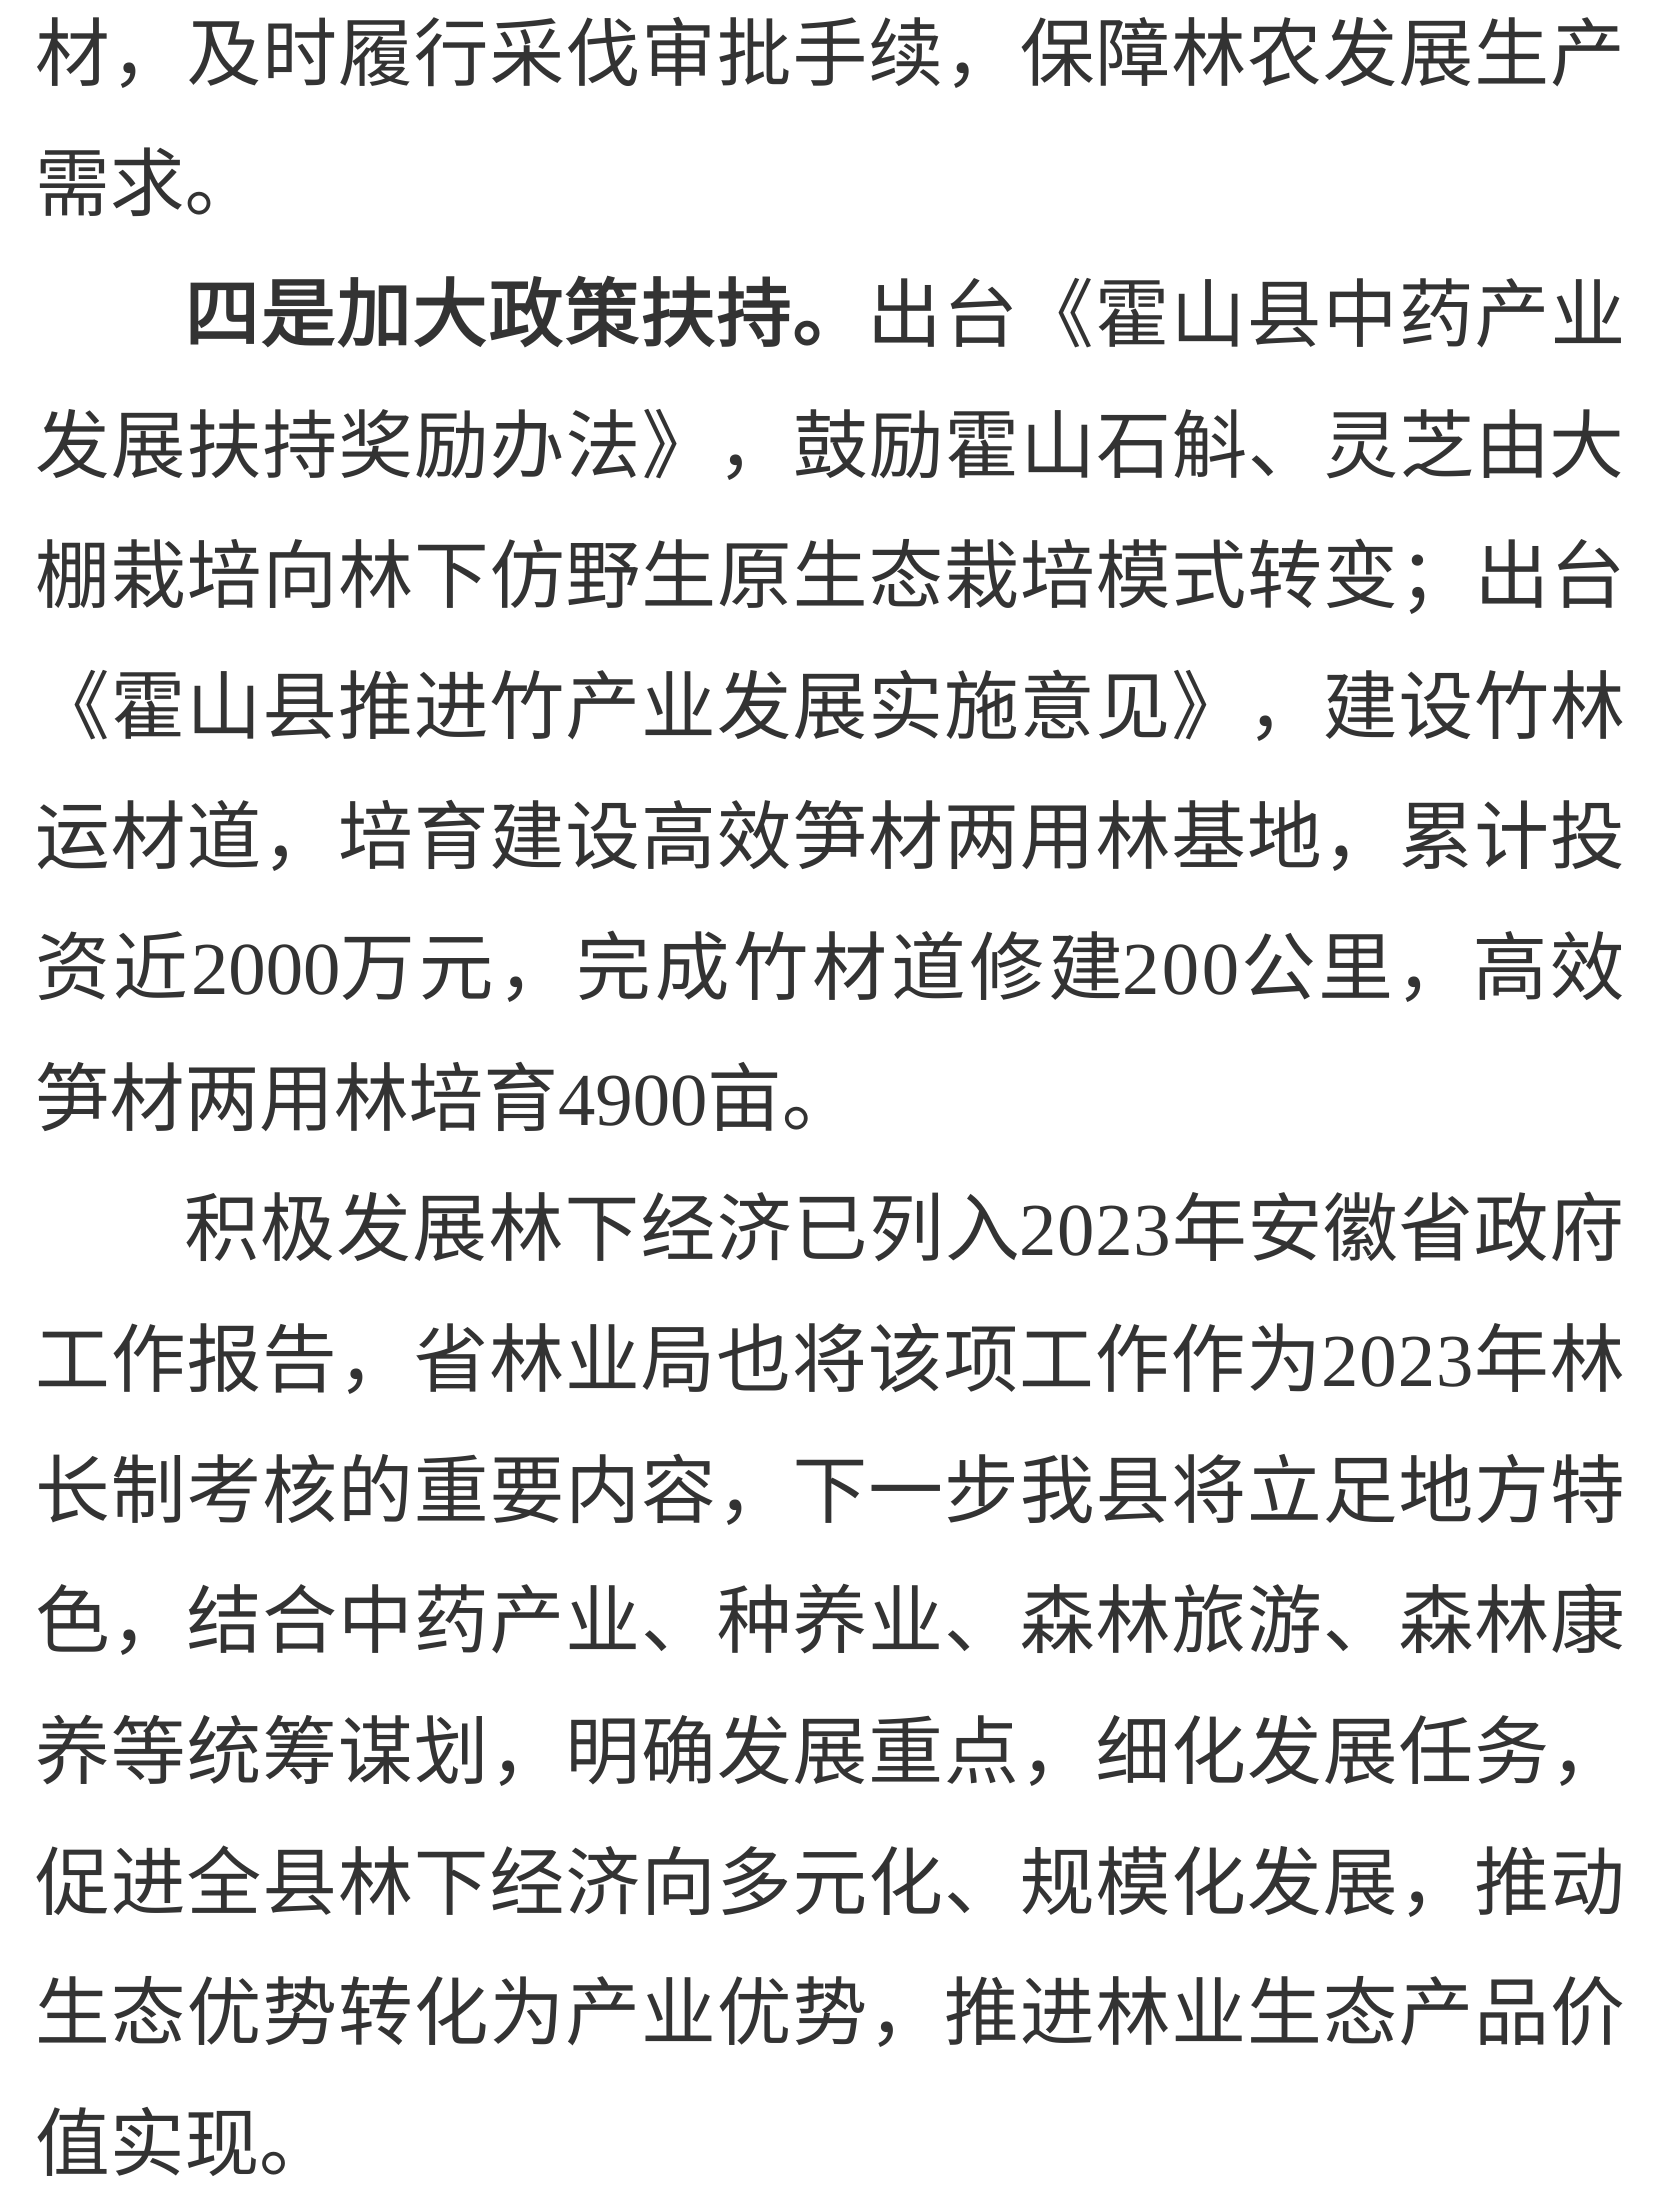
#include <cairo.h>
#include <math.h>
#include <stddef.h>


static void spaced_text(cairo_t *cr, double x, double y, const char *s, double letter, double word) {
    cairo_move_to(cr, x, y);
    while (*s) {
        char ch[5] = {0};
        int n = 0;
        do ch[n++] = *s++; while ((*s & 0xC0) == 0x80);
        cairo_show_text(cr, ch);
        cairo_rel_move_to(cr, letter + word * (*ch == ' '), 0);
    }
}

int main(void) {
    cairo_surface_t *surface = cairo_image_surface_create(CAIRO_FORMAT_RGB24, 1657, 2204);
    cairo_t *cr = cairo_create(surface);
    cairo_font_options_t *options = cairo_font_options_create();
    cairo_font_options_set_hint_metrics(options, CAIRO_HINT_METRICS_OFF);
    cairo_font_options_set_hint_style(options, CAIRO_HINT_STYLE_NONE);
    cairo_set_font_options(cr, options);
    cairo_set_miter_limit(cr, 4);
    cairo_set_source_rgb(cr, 1, 1, 1);
    cairo_paint(cr);
    cairo_select_font_face(cr, "Noto Sans CJK SC", CAIRO_FONT_SLANT_NORMAL, CAIRO_FONT_WEIGHT_NORMAL);
    cairo_set_font_size(cr, 74.7);
    cairo_set_source_rgb(cr, 0.2, 0.2, 0.2);
    spaced_text(cr, 35, 80, "材，及时履行采伐审批手续，保障林农发展生产", 1.05, 0);
    cairo_move_to(cr, 35, 210);
    cairo_show_text(cr, "需求。");
    cairo_select_font_face(cr, "Noto Sans CJK SC", CAIRO_FONT_SLANT_NORMAL, CAIRO_FONT_WEIGHT_BOLD);
    spaced_text(cr, 184, 341, "四是加大政策扶持。", 1.25, 0);
    cairo_select_font_face(cr, "Noto Sans CJK SC", CAIRO_FONT_SLANT_NORMAL, CAIRO_FONT_WEIGHT_NORMAL);
    spaced_text(cr, 867, 341, "出台《霍山县中药产业", 1.25, 0);
    spaced_text(cr, 35, 472, "发展扶持奖励办法》，鼓励霍山石斛、灵芝由", 1.1, 0);
    cairo_move_to(cr, 1549, 472);
    cairo_show_text(cr, "大");
    cairo_move_to(cr, 35, 602);
    cairo_show_text(cr, "棚");
    spaced_text(cr, 111, 602, "栽培向林下仿野生原生态栽培模式转变；出台", 1.05, 0);
    spaced_text(cr, 35, 733, "《霍山县推进竹产业发展实施意见》，建设竹林", 1.05, 0);
    spaced_text(cr, 35, 863, "运材道，培育建设高效笋材两用林基地，累计投", 1.05, 0);
    cairo_move_to(cr, 35, 994);
    cairo_show_text(cr, "资");
    cairo_move_to(cr, 113, 994);
    cairo_show_text(cr, "近");
    cairo_select_font_face(cr, "Liberation Serif", CAIRO_FONT_SLANT_NORMAL, CAIRO_FONT_WEIGHT_NORMAL);
    cairo_move_to(cr, 191, 994);
    cairo_show_text(cr, "2000");
    cairo_select_font_face(cr, "Noto Sans CJK SC", CAIRO_FONT_SLANT_NORMAL, CAIRO_FONT_WEIGHT_NORMAL);
    spaced_text(cr, 340, 994, "万元，完成竹材道修建", 4, 0);
    cairo_select_font_face(cr, "Liberation Serif", CAIRO_FONT_SLANT_NORMAL, CAIRO_FONT_WEIGHT_NORMAL);
    spaced_text(cr, 1122, 994, "200", 2.5, 0);
    cairo_select_font_face(cr, "Noto Sans CJK SC", CAIRO_FONT_SLANT_NORMAL, CAIRO_FONT_WEIGHT_NORMAL);
    spaced_text(cr, 1241, 994, "公里，高效", 2.5, 0);
    cairo_move_to(cr, 35, 1125);
    cairo_show_text(cr, "笋材两用林培育");
    cairo_select_font_face(cr, "Liberation Serif", CAIRO_FONT_SLANT_NORMAL, CAIRO_FONT_WEIGHT_NORMAL);
    cairo_move_to(cr, 558, 1125);
    cairo_show_text(cr, "4900");
    cairo_select_font_face(cr, "Noto Sans CJK SC", CAIRO_FONT_SLANT_NORMAL, CAIRO_FONT_WEIGHT_NORMAL);
    cairo_move_to(cr, 707, 1125);
    cairo_show_text(cr, "亩。");
    spaced_text(cr, 184, 1255, "积极发展林下经济已列入", 1.4, 0);
    cairo_select_font_face(cr, "Liberation Serif", CAIRO_FONT_SLANT_NORMAL, CAIRO_FONT_WEIGHT_NORMAL);
    spaced_text(cr, 1019, 1255, "2023", 0.75, 0);
    cairo_select_font_face(cr, "Noto Sans CJK SC", CAIRO_FONT_SLANT_NORMAL, CAIRO_FONT_WEIGHT_NORMAL);
    spaced_text(cr, 1172, 1255, "年安徽省政府", 0.75, 0);
    spaced_text(cr, 35, 1386, "工作报告，省林业局也将该项工作作为", 1, 0);
    cairo_select_font_face(cr, "Liberation Serif", CAIRO_FONT_SLANT_NORMAL, CAIRO_FONT_WEIGHT_NORMAL);
    spaced_text(cr, 1321, 1386, "2023", 1, 0);
    cairo_select_font_face(cr, "Noto Sans CJK SC", CAIRO_FONT_SLANT_NORMAL, CAIRO_FONT_WEIGHT_NORMAL);
    spaced_text(cr, 1474, 1386, "年林", 1, 0);
    spaced_text(cr, 35, 1517, "长制考核的重要内容，下一步我县将立足地方特", 1.05, 0);
    spaced_text(cr, 35, 1647, "色，结合中药产业、种养业、森林旅游、森林康", 1.05, 0);
    spaced_text(cr, 35, 1778, "养等统筹谋划，明确发展重点，细化发展任务，", 1.05, 0);
    spaced_text(cr, 35, 1909, "促进全县林下经济向多元化、规模化发展，推动", 1.05, 0);
    spaced_text(cr, 35, 2039, "生态优势转化为产业优势，推进林业生态产品价", 1.05, 0);
    cairo_move_to(cr, 35, 2170);
    cairo_show_text(cr, "值实现。");
    cairo_surface_write_to_png(surface, "page.png");
    cairo_font_options_destroy(options);
    cairo_destroy(cr);
    cairo_surface_destroy(surface);
    return 0;
}
